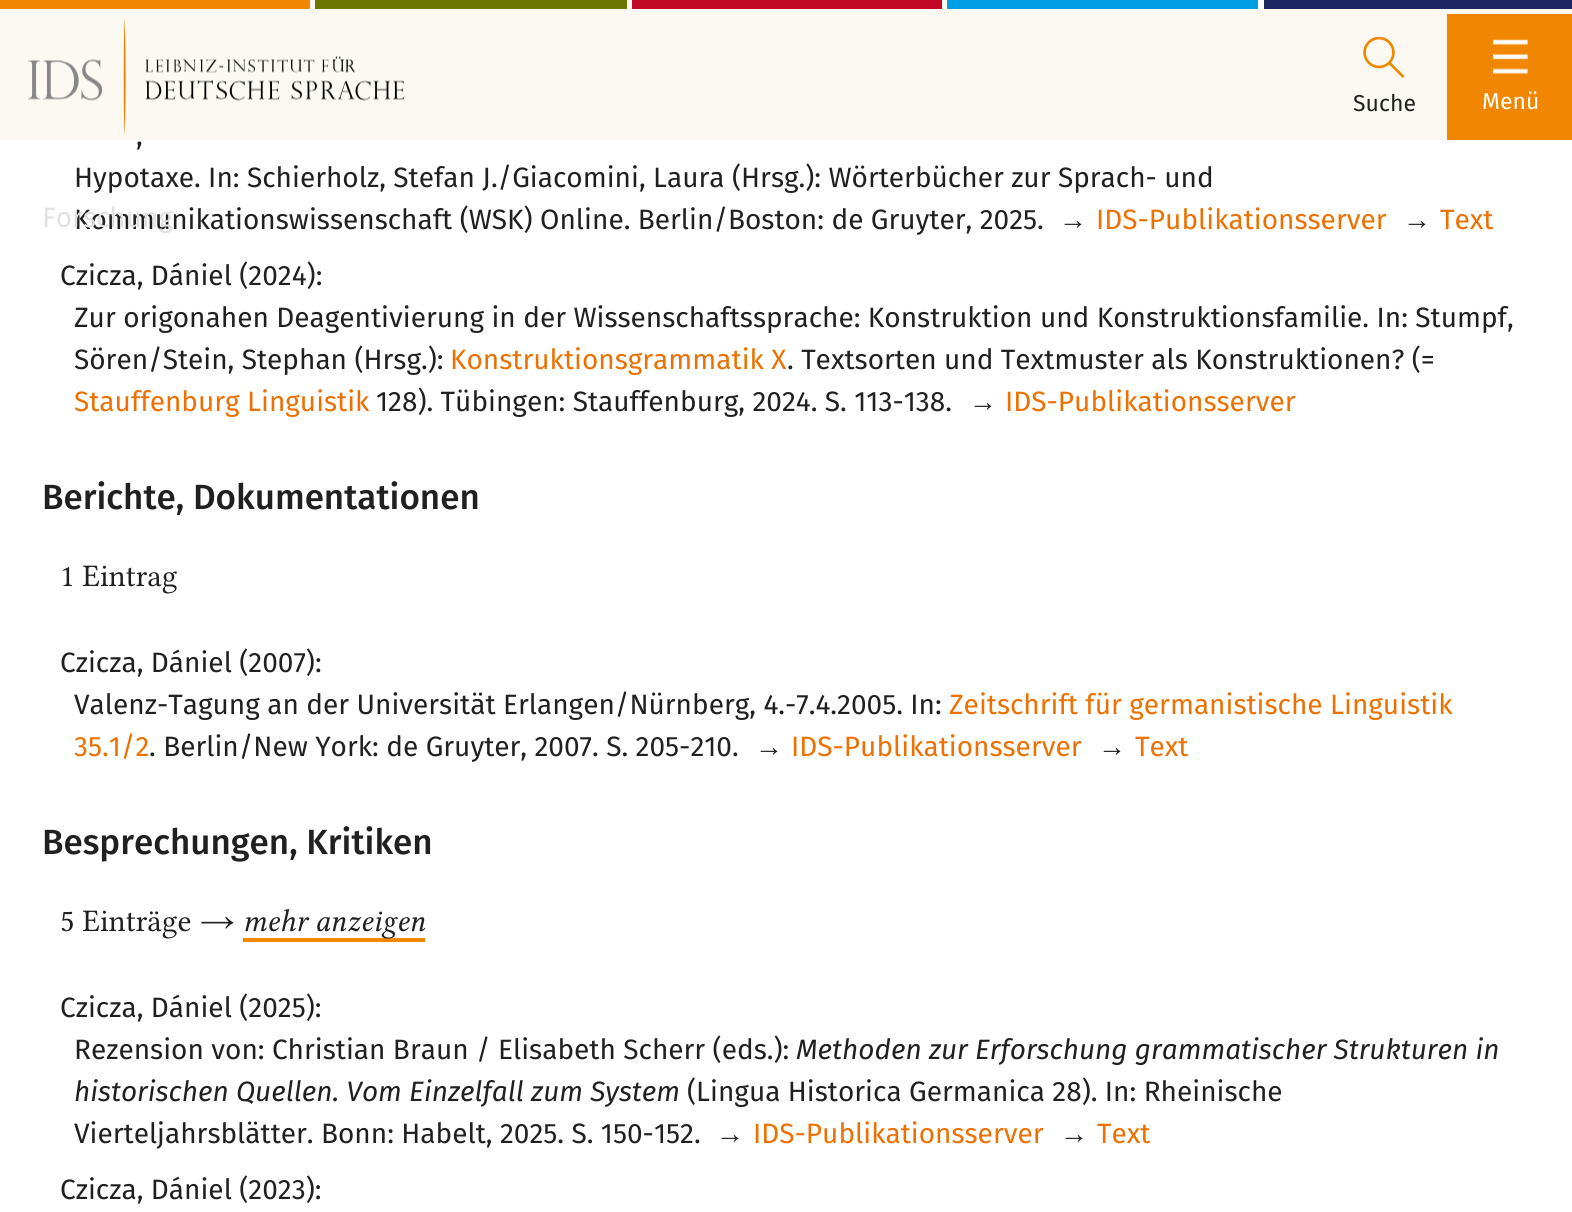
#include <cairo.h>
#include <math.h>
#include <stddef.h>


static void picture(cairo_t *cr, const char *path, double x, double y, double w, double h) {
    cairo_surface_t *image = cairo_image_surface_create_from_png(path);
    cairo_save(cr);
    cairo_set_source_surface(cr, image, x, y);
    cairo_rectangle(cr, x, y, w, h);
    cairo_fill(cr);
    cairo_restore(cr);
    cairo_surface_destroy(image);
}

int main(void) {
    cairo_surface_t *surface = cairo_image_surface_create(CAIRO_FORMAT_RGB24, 1572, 1212);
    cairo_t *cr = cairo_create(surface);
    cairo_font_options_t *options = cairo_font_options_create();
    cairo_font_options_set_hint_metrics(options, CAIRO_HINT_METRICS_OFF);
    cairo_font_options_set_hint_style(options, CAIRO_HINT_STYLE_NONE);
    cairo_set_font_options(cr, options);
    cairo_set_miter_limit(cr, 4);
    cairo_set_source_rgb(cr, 1, 1, 1);
    cairo_paint(cr);
    cairo_set_source_rgb(cr, 0.984, 0.973, 0.945);
    cairo_rectangle(cr, 0, 0, 1572, 14);
    cairo_fill(cr);
    cairo_set_source_rgb(cr, 0.945, 0.529, 0);
    cairo_rectangle(cr, 0, 0, 310, 9);
    cairo_fill(cr);
    cairo_set_source_rgb(cr, 0.416, 0.467, 0.008);
    cairo_rectangle(cr, 315, 0, 312, 9);
    cairo_fill(cr);
    cairo_set_source_rgb(cr, 0.757, 0.039, 0.145);
    cairo_rectangle(cr, 632, 0, 310, 9);
    cairo_fill(cr);
    cairo_set_source_rgb(cr, 0, 0.62, 0.89);
    cairo_rectangle(cr, 947, 0, 311, 9);
    cairo_fill(cr);
    cairo_set_source_rgb(cr, 0.118, 0.149, 0.384);
    cairo_rectangle(cr, 1264, 0, 308, 9);
    cairo_fill(cr);
    cairo_set_source_rgb(cr, 0.984, 0.973, 0.945);
    cairo_rectangle(cr, 0, 14, 1447, 126);
    cairo_fill(cr);
    picture(cr, "img1.png", 28, 18, 377, 119);
    picture(cr, "img2.png", 1363, 37, 42, 41);
    cairo_select_font_face(cr, "Fira Sans", CAIRO_FONT_SLANT_NORMAL, CAIRO_FONT_WEIGHT_NORMAL);
    cairo_set_font_size(cr, 23);
    cairo_set_source_rgb(cr, 0.125, 0.125, 0.125);
    cairo_move_to(cr, 1353, 111);
    cairo_show_text(cr, "Suche");
    cairo_set_source_rgb(cr, 0.945, 0.529, 0);
    cairo_rectangle(cr, 1447, 14, 125, 126);
    cairo_fill(cr);
    picture(cr, "img3.png", 1493, 39, 35, 35);
    cairo_set_source_rgb(cr, 1, 1, 1);
    cairo_move_to(cr, 1482, 109);
    cairo_show_text(cr, "Menü");
    cairo_set_font_size(cr, 28);
    cairo_set_source_rgb(cr, 0.125, 0.125, 0.125);
    cairo_move_to(cr, 136, 145);
    cairo_show_text(cr, ",");
    cairo_move_to(cr, 74, 187);
    cairo_show_text(cr, "Hypotaxe. In: Schierholz, Stefan J./Giacomini, Laura (Hrsg.): Wörterbücher zur Sprach- und");
    cairo_move_to(cr, 74, 229);
    cairo_show_text(cr, "Kommunikationswissenschaft (WSK) Online. Berlin/Boston: de Gruyter, 2025.");
    cairo_select_font_face(cr, "Liberation Serif", CAIRO_FONT_SLANT_NORMAL, CAIRO_FONT_WEIGHT_NORMAL);
    cairo_move_to(cr, 1059, 229);
    cairo_show_text(cr, "→");
    cairo_select_font_face(cr, "Fira Sans", CAIRO_FONT_SLANT_NORMAL, CAIRO_FONT_WEIGHT_NORMAL);
    cairo_set_source_rgb(cr, 0.929, 0.443, 0.008);
    cairo_move_to(cr, 1096, 229);
    cairo_show_text(cr, "IDS-Publikationsserver");
    cairo_select_font_face(cr, "Liberation Serif", CAIRO_FONT_SLANT_NORMAL, CAIRO_FONT_WEIGHT_NORMAL);
    cairo_set_source_rgb(cr, 0.125, 0.125, 0.125);
    cairo_move_to(cr, 1403, 229);
    cairo_show_text(cr, "→");
    cairo_select_font_face(cr, "Fira Sans", CAIRO_FONT_SLANT_NORMAL, CAIRO_FONT_WEIGHT_NORMAL);
    cairo_set_source_rgb(cr, 0.929, 0.443, 0.008);
    cairo_move_to(cr, 1440, 229);
    cairo_show_text(cr, "Text");
    cairo_set_source_rgb(cr, 0.125, 0.125, 0.125);
    cairo_move_to(cr, 60, 285);
    cairo_show_text(cr, "Czicza, Dániel (2024):");
    cairo_move_to(cr, 74, 327);
    cairo_show_text(cr, "Zur origonahen Deagentivierung in der Wissenschaftssprache: Konstruktion und Konstruktionsfamilie. In: Stumpf,");
    cairo_move_to(cr, 74, 369);
    cairo_show_text(cr, "Sören/Stein, Stephan (Hrsg.):");
    cairo_set_source_rgb(cr, 0.929, 0.443, 0.008);
    cairo_move_to(cr, 450, 369);
    cairo_show_text(cr, "Konstruktionsgrammatik X");
    cairo_set_source_rgb(cr, 0.125, 0.125, 0.125);
    cairo_move_to(cr, 787, 369);
    cairo_show_text(cr, ". Textsorten und Textmuster als Konstruktionen? (=");
    cairo_set_source_rgb(cr, 0.929, 0.443, 0.008);
    cairo_move_to(cr, 74, 411);
    cairo_show_text(cr, "Stauffenburg Linguistik");
    cairo_set_source_rgb(cr, 0.125, 0.125, 0.125);
    cairo_move_to(cr, 376, 411);
    cairo_show_text(cr, "128). Tübingen: Stauffenburg, 2024. S. 113-138.");
    cairo_select_font_face(cr, "Liberation Serif", CAIRO_FONT_SLANT_NORMAL, CAIRO_FONT_WEIGHT_NORMAL);
    cairo_move_to(cr, 969, 411);
    cairo_show_text(cr, "→");
    cairo_select_font_face(cr, "Fira Sans", CAIRO_FONT_SLANT_NORMAL, CAIRO_FONT_WEIGHT_NORMAL);
    cairo_set_source_rgb(cr, 0.929, 0.443, 0.008);
    cairo_move_to(cr, 1005, 411);
    cairo_show_text(cr, "IDS-Publikationsserver");
    cairo_select_font_face(cr, "Fira Sans Medium", CAIRO_FONT_SLANT_NORMAL, CAIRO_FONT_WEIGHT_NORMAL);
    cairo_set_font_size(cr, 35);
    cairo_set_source_rgb(cr, 0.125, 0.125, 0.125);
    cairo_move_to(cr, 42, 509);
    cairo_show_text(cr, "Berichte, Dokumentationen");
    cairo_select_font_face(cr, "Libertinus Serif", CAIRO_FONT_SLANT_NORMAL, CAIRO_FONT_WEIGHT_NORMAL);
    cairo_set_font_size(cr, 31.5);
    cairo_move_to(cr, 60, 586);
    cairo_show_text(cr, "1 Eintrag");
    cairo_select_font_face(cr, "Fira Sans", CAIRO_FONT_SLANT_NORMAL, CAIRO_FONT_WEIGHT_NORMAL);
    cairo_set_font_size(cr, 28);
    cairo_move_to(cr, 60, 672);
    cairo_show_text(cr, "Czicza, Dániel (2007):");
    cairo_move_to(cr, 74, 714);
    cairo_show_text(cr, "Valenz-Tagung an der Universität Erlangen/Nürnberg, 4.-7.4.2005. In:");
    cairo_set_source_rgb(cr, 0.929, 0.443, 0.008);
    cairo_move_to(cr, 949, 714);
    cairo_show_text(cr, "Zeitschrift für germanistische Linguistik");
    cairo_move_to(cr, 74, 756);
    cairo_show_text(cr, "35.1/2");
    cairo_set_source_rgb(cr, 0.125, 0.125, 0.125);
    cairo_move_to(cr, 149, 756);
    cairo_show_text(cr, ". Berlin/New York: de Gruyter, 2007. S. 205-210.");
    cairo_select_font_face(cr, "Liberation Serif", CAIRO_FONT_SLANT_NORMAL, CAIRO_FONT_WEIGHT_NORMAL);
    cairo_move_to(cr, 755, 756);
    cairo_show_text(cr, "→");
    cairo_select_font_face(cr, "Fira Sans", CAIRO_FONT_SLANT_NORMAL, CAIRO_FONT_WEIGHT_NORMAL);
    cairo_set_source_rgb(cr, 0.929, 0.443, 0.008);
    cairo_move_to(cr, 791, 756);
    cairo_show_text(cr, "IDS-Publikationsserver");
    cairo_select_font_face(cr, "Liberation Serif", CAIRO_FONT_SLANT_NORMAL, CAIRO_FONT_WEIGHT_NORMAL);
    cairo_set_source_rgb(cr, 0.125, 0.125, 0.125);
    cairo_move_to(cr, 1098, 756);
    cairo_show_text(cr, "→");
    cairo_select_font_face(cr, "Fira Sans", CAIRO_FONT_SLANT_NORMAL, CAIRO_FONT_WEIGHT_NORMAL);
    cairo_set_source_rgb(cr, 0.929, 0.443, 0.008);
    cairo_move_to(cr, 1135, 756);
    cairo_show_text(cr, "Text");
    cairo_select_font_face(cr, "Fira Sans Medium", CAIRO_FONT_SLANT_NORMAL, CAIRO_FONT_WEIGHT_NORMAL);
    cairo_set_font_size(cr, 35);
    cairo_set_source_rgb(cr, 0.125, 0.125, 0.125);
    cairo_move_to(cr, 42, 854);
    cairo_show_text(cr, "Besprechungen, Kritiken");
    cairo_select_font_face(cr, "Libertinus Serif", CAIRO_FONT_SLANT_NORMAL, CAIRO_FONT_WEIGHT_NORMAL);
    cairo_set_font_size(cr, 31.5);
    cairo_move_to(cr, 60, 931);
    cairo_show_text(cr, "5 Einträge →");
    cairo_set_source_rgb(cr, 0.945, 0.529, 0);
    cairo_rectangle(cr, 243, 938, 182, 4);
    cairo_fill(cr);
    cairo_select_font_face(cr, "Libertinus Serif", CAIRO_FONT_SLANT_ITALIC, CAIRO_FONT_WEIGHT_NORMAL);
    cairo_set_source_rgb(cr, 0.125, 0.125, 0.125);
    cairo_move_to(cr, 242, 931);
    cairo_show_text(cr, "mehr anzeigen");
    cairo_select_font_face(cr, "Fira Sans", CAIRO_FONT_SLANT_NORMAL, CAIRO_FONT_WEIGHT_NORMAL);
    cairo_set_font_size(cr, 28);
    cairo_move_to(cr, 60, 1017);
    cairo_show_text(cr, "Czicza, Dániel (2025):");
    cairo_move_to(cr, 74, 1059);
    cairo_show_text(cr, "Rezension von: Christian Braun / Elisabeth Scherr (eds.):");
    cairo_select_font_face(cr, "Fira Sans", CAIRO_FONT_SLANT_ITALIC, CAIRO_FONT_WEIGHT_NORMAL);
    cairo_move_to(cr, 796, 1059);
    cairo_show_text(cr, "Methoden zur Erforschung grammatischer Strukturen in");
    cairo_move_to(cr, 74, 1101);
    cairo_show_text(cr, "historischen Quellen. Vom Einzelfall zum System");
    cairo_select_font_face(cr, "Fira Sans", CAIRO_FONT_SLANT_NORMAL, CAIRO_FONT_WEIGHT_NORMAL);
    cairo_move_to(cr, 687, 1101);
    cairo_show_text(cr, "(Lingua Historica Germanica 28). In: Rheinische");
    cairo_move_to(cr, 74, 1143);
    cairo_show_text(cr, "Vierteljahrsblätter. Bonn: Habelt, 2025. S. 150-152.");
    cairo_select_font_face(cr, "Liberation Serif", CAIRO_FONT_SLANT_NORMAL, CAIRO_FONT_WEIGHT_NORMAL);
    cairo_move_to(cr, 716, 1143);
    cairo_show_text(cr, "→");
    cairo_select_font_face(cr, "Fira Sans", CAIRO_FONT_SLANT_NORMAL, CAIRO_FONT_WEIGHT_NORMAL);
    cairo_set_source_rgb(cr, 0.929, 0.443, 0.008);
    cairo_move_to(cr, 753, 1143);
    cairo_show_text(cr, "IDS-Publikationsserver");
    cairo_select_font_face(cr, "Liberation Serif", CAIRO_FONT_SLANT_NORMAL, CAIRO_FONT_WEIGHT_NORMAL);
    cairo_set_source_rgb(cr, 0.125, 0.125, 0.125);
    cairo_move_to(cr, 1060, 1143);
    cairo_show_text(cr, "→");
    cairo_select_font_face(cr, "Fira Sans", CAIRO_FONT_SLANT_NORMAL, CAIRO_FONT_WEIGHT_NORMAL);
    cairo_set_source_rgb(cr, 0.929, 0.443, 0.008);
    cairo_move_to(cr, 1097, 1143);
    cairo_show_text(cr, "Text");
    cairo_set_source_rgb(cr, 0.125, 0.125, 0.125);
    cairo_move_to(cr, 60, 1199);
    cairo_show_text(cr, "Czicza, Dániel (2023):");
    cairo_set_source_rgb(cr, 0.882, 0.882, 0.882);
    cairo_move_to(cr, 42, 227);
    cairo_show_text(cr, "Forschung");
    cairo_surface_write_to_png(surface, "page.png");
    cairo_font_options_destroy(options);
    cairo_destroy(cr);
    cairo_surface_destroy(surface);
    return 0;
}
